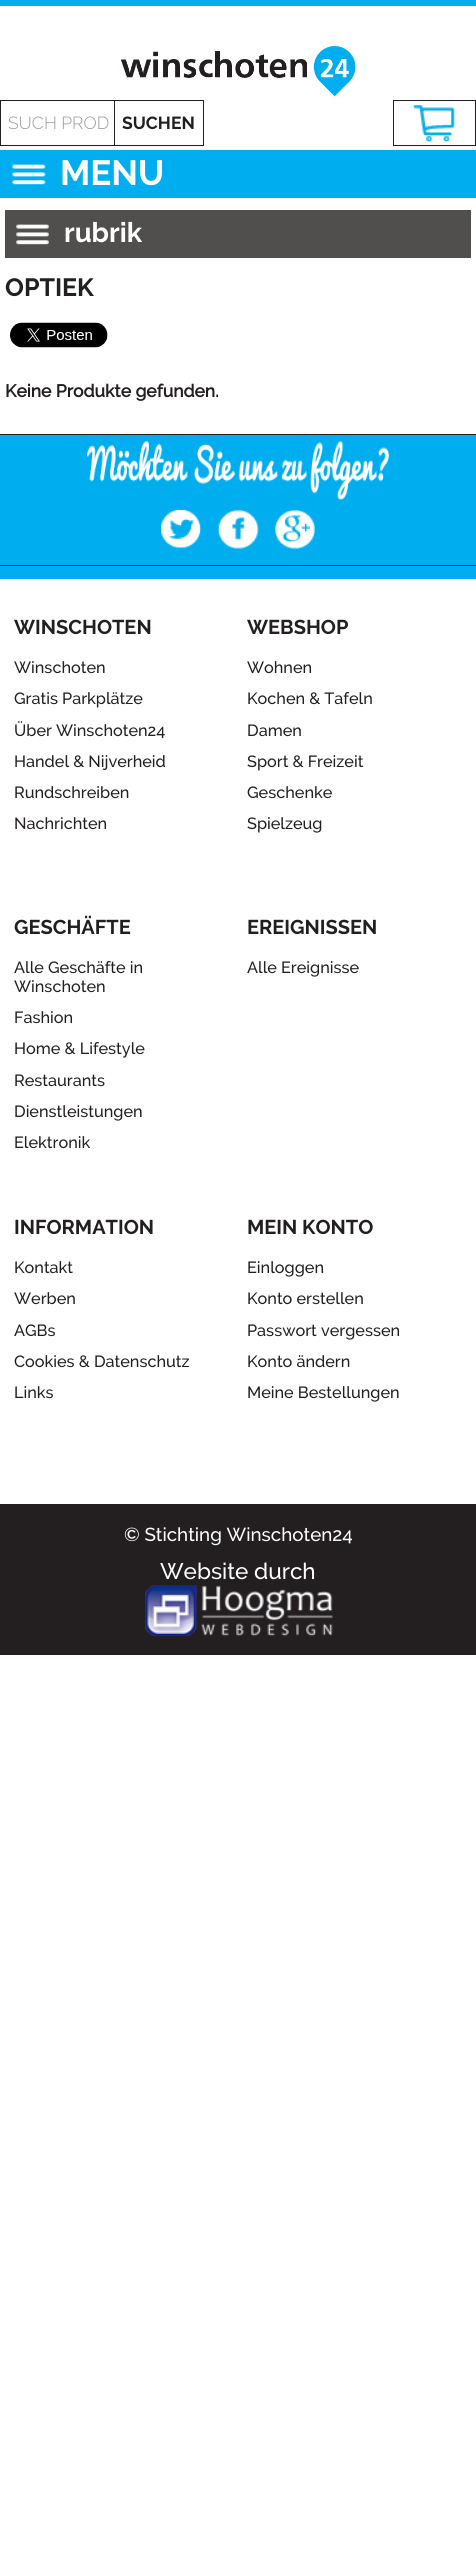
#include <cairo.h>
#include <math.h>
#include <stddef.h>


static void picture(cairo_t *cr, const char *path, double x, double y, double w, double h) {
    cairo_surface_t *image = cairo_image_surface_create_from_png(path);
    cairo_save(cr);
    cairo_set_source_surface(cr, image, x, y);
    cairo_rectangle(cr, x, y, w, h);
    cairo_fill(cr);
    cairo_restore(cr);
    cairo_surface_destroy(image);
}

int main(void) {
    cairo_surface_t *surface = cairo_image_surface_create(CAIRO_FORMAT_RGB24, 476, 2575);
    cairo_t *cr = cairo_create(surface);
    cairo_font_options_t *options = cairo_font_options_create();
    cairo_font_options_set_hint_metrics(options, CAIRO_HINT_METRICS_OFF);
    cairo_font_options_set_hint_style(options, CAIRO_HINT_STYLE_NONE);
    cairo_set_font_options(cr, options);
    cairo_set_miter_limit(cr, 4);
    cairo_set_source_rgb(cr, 1, 1, 1);
    cairo_paint(cr);
    cairo_set_source_rgb(cr, 0, 0.682, 0.937);
    cairo_rectangle(cr, 0, 0, 476, 6);
    cairo_fill(cr);
    picture(cr, "img1.png", 121, 46, 235, 51);
    cairo_rectangle(cr, 0.5, 100.5, 114, 45);
    cairo_set_source_rgb(cr, 0.137, 0.122, 0.125);
    cairo_set_line_width(cr, 1);
    cairo_stroke(cr);
    cairo_select_font_face(cr, "Raleway Light", CAIRO_FONT_SLANT_NORMAL, CAIRO_FONT_WEIGHT_NORMAL);
    cairo_set_font_size(cr, 17.5);
    cairo_set_source_rgb(cr, 0.6, 0.6, 0.6);
    cairo_move_to(cr, 8, 129);
    cairo_show_text(cr, "SUCH PROD");
    cairo_set_source_rgb(cr, 0.137, 0.122, 0.125);
    cairo_rectangle(cr, 115, 100, 89, 1);
    cairo_fill(cr);
    cairo_rectangle(cr, 203, 100, 1, 46);
    cairo_fill(cr);
    cairo_rectangle(cr, 115, 145, 89, 1);
    cairo_fill(cr);
    cairo_select_font_face(cr, "Raleway", CAIRO_FONT_SLANT_NORMAL, CAIRO_FONT_WEIGHT_BOLD);
    cairo_move_to(cr, 122, 129);
    cairo_show_text(cr, "SUCHEN");
    cairo_rectangle(cr, 393.5, 100.5, 82, 45);
    cairo_stroke(cr);
    picture(cr, "img2.png", 413, 105, 42, 37);
    cairo_set_source_rgb(cr, 0, 0.682, 0.937);
    cairo_rectangle(cr, 0, 150, 476, 48);
    cairo_fill(cr);
    picture(cr, "img3.png", 12, 164, 34, 21);
    cairo_set_font_size(cr, 35);
    cairo_set_source_rgb(cr, 1, 1, 1);
    cairo_move_to(cr, 60, 185);
    cairo_show_text(cr, "MENU");
    cairo_set_source_rgb(cr, 0.314, 0.31, 0.306);
    cairo_rectangle(cr, 5, 210, 466, 48);
    cairo_fill(cr);
    picture(cr, "img4.png", 16, 224, 33, 21);
    cairo_set_font_size(cr, 27.5);
    cairo_set_source_rgb(cr, 1, 1, 1);
    cairo_move_to(cr, 64, 242);
    cairo_show_text(cr, "rubrik");
    cairo_set_font_size(cr, 25);
    cairo_set_source_rgb(cr, 0.137, 0.122, 0.125);
    cairo_move_to(cr, 5, 296);
    cairo_show_text(cr, "OPTIEK");
    picture(cr, "img5.png", 10, 322, 98, 26);
    cairo_select_font_face(cr, "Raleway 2", CAIRO_FONT_SLANT_NORMAL, CAIRO_FONT_WEIGHT_BOLD);
    cairo_set_font_size(cr, 17.5);
    cairo_move_to(cr, 5, 397);
    cairo_show_text(cr, "Keine Produkte gefunden.");
    cairo_set_source_rgb(cr, 0, 0.682, 0.937);
    cairo_rectangle(cr, 0, 435, 476, 130);
    cairo_fill(cr);
    cairo_set_source_rgb(cr, 0.137, 0.122, 0.125);
    cairo_rectangle(cr, 0, 434, 476, 1);
    cairo_fill(cr);
    cairo_rectangle(cr, 0, 565, 476, 1);
    cairo_fill(cr);
    picture(cr, "img6.png", 87, 441, 302, 59);
    picture(cr, "img7.png", 161, 510, 41, 38);
    picture(cr, "img8.png", 218, 510, 41, 39);
    picture(cr, "img9.png", 275, 510, 40, 39);
    cairo_set_source_rgb(cr, 0, 0.682, 0.937);
    cairo_rectangle(cr, 0, 566, 476, 13);
    cairo_fill(cr);
    cairo_select_font_face(cr, "Raleway", CAIRO_FONT_SLANT_NORMAL, CAIRO_FONT_WEIGHT_BOLD);
    cairo_set_font_size(cr, 20);
    cairo_set_source_rgb(cr, 0.137, 0.122, 0.125);
    cairo_move_to(cr, 14, 634);
    cairo_show_text(cr, "WINSCHOTEN");
    cairo_select_font_face(cr, "Raleway Medium", CAIRO_FONT_SLANT_NORMAL, CAIRO_FONT_WEIGHT_NORMAL);
    cairo_set_font_size(cr, 16.25);
    cairo_move_to(cr, 14, 673);
    cairo_show_text(cr, "Winschoten");
    cairo_move_to(cr, 14, 704);
    cairo_show_text(cr, "Gratis Parkplätze");
    cairo_move_to(cr, 14, 736);
    cairo_show_text(cr, "Über Winschoten24");
    cairo_move_to(cr, 14, 767);
    cairo_show_text(cr, "Handel & Nijverheid");
    cairo_move_to(cr, 14, 798);
    cairo_show_text(cr, "Rundschreiben");
    cairo_move_to(cr, 14, 829);
    cairo_show_text(cr, "Nachrichten");
    cairo_select_font_face(cr, "Raleway", CAIRO_FONT_SLANT_NORMAL, CAIRO_FONT_WEIGHT_BOLD);
    cairo_set_font_size(cr, 20);
    cairo_move_to(cr, 247, 634);
    cairo_show_text(cr, "WEBSHOP");
    cairo_select_font_face(cr, "Raleway Medium", CAIRO_FONT_SLANT_NORMAL, CAIRO_FONT_WEIGHT_NORMAL);
    cairo_set_font_size(cr, 16.25);
    cairo_move_to(cr, 247, 673);
    cairo_show_text(cr, "Wohnen");
    cairo_move_to(cr, 247, 704);
    cairo_show_text(cr, "Kochen & Tafeln");
    cairo_move_to(cr, 247, 736);
    cairo_show_text(cr, "Damen");
    cairo_move_to(cr, 247, 767);
    cairo_show_text(cr, "Sport & Freizeit");
    cairo_move_to(cr, 247, 798);
    cairo_show_text(cr, "Geschenke");
    cairo_move_to(cr, 247, 829);
    cairo_show_text(cr, "Spielzeug");
    cairo_select_font_face(cr, "Raleway", CAIRO_FONT_SLANT_NORMAL, CAIRO_FONT_WEIGHT_BOLD);
    cairo_set_font_size(cr, 20);
    cairo_move_to(cr, 14, 934);
    cairo_show_text(cr, "GESCHÄFTE");
    cairo_select_font_face(cr, "Raleway Medium", CAIRO_FONT_SLANT_NORMAL, CAIRO_FONT_WEIGHT_NORMAL);
    cairo_set_font_size(cr, 16.25);
    cairo_move_to(cr, 14, 973);
    cairo_show_text(cr, "Alle Geschäfte in");
    cairo_move_to(cr, 14, 992);
    cairo_show_text(cr, "Winschoten");
    cairo_move_to(cr, 14, 1023);
    cairo_show_text(cr, "Fashion");
    cairo_move_to(cr, 14, 1054);
    cairo_show_text(cr, "Home & Lifestyle");
    cairo_move_to(cr, 14, 1086);
    cairo_show_text(cr, "Restaurants");
    cairo_move_to(cr, 14, 1117);
    cairo_show_text(cr, "Dienstleistungen");
    cairo_move_to(cr, 14, 1148);
    cairo_show_text(cr, "Elektronik");
    cairo_select_font_face(cr, "Raleway", CAIRO_FONT_SLANT_NORMAL, CAIRO_FONT_WEIGHT_BOLD);
    cairo_set_font_size(cr, 20);
    cairo_move_to(cr, 247, 934);
    cairo_show_text(cr, "EREIGNISSEN");
    cairo_select_font_face(cr, "Raleway Medium", CAIRO_FONT_SLANT_NORMAL, CAIRO_FONT_WEIGHT_NORMAL);
    cairo_set_font_size(cr, 16.25);
    cairo_move_to(cr, 247, 973);
    cairo_show_text(cr, "Alle Ereignisse");
    cairo_select_font_face(cr, "Raleway", CAIRO_FONT_SLANT_NORMAL, CAIRO_FONT_WEIGHT_BOLD);
    cairo_set_font_size(cr, 20);
    cairo_move_to(cr, 14, 1234);
    cairo_show_text(cr, "INFORMATION");
    cairo_select_font_face(cr, "Raleway Medium", CAIRO_FONT_SLANT_NORMAL, CAIRO_FONT_WEIGHT_NORMAL);
    cairo_set_font_size(cr, 16.25);
    cairo_move_to(cr, 14, 1273);
    cairo_show_text(cr, "Kontakt");
    cairo_move_to(cr, 14, 1304);
    cairo_show_text(cr, "Werben");
    cairo_move_to(cr, 14, 1336);
    cairo_show_text(cr, "AGBs");
    cairo_move_to(cr, 14, 1367);
    cairo_show_text(cr, "Cookies & Datenschutz");
    cairo_move_to(cr, 14, 1398);
    cairo_show_text(cr, "Links");
    cairo_select_font_face(cr, "Raleway", CAIRO_FONT_SLANT_NORMAL, CAIRO_FONT_WEIGHT_BOLD);
    cairo_set_font_size(cr, 20);
    cairo_move_to(cr, 247, 1234);
    cairo_show_text(cr, "MEIN KONTO");
    cairo_select_font_face(cr, "Raleway Medium", CAIRO_FONT_SLANT_NORMAL, CAIRO_FONT_WEIGHT_NORMAL);
    cairo_set_font_size(cr, 16.25);
    cairo_move_to(cr, 247, 1273);
    cairo_show_text(cr, "Einloggen");
    cairo_move_to(cr, 247, 1304);
    cairo_show_text(cr, "Konto erstellen");
    cairo_move_to(cr, 247, 1336);
    cairo_show_text(cr, "Passwort vergessen");
    cairo_move_to(cr, 247, 1367);
    cairo_show_text(cr, "Konto ändern");
    cairo_move_to(cr, 247, 1398);
    cairo_show_text(cr, "Meine Bestellungen");
    cairo_rectangle(cr, 0, 1504, 476, 151);
    cairo_fill(cr);
    cairo_set_font_size(cr, 18.75);
    cairo_set_source_rgb(cr, 1, 1, 1);
    cairo_move_to(cr, 124, 1541);
    cairo_show_text(cr, "© Stichting Winschoten24");
    cairo_set_font_size(cr, 22.5);
    cairo_move_to(cr, 160, 1579);
    cairo_show_text(cr, "Website durch");
    picture(cr, "img10.png", 145, 1585, 188, 52);
    cairo_surface_write_to_png(surface, "page.png");
    cairo_font_options_destroy(options);
    cairo_destroy(cr);
    cairo_surface_destroy(surface);
    return 0;
}
